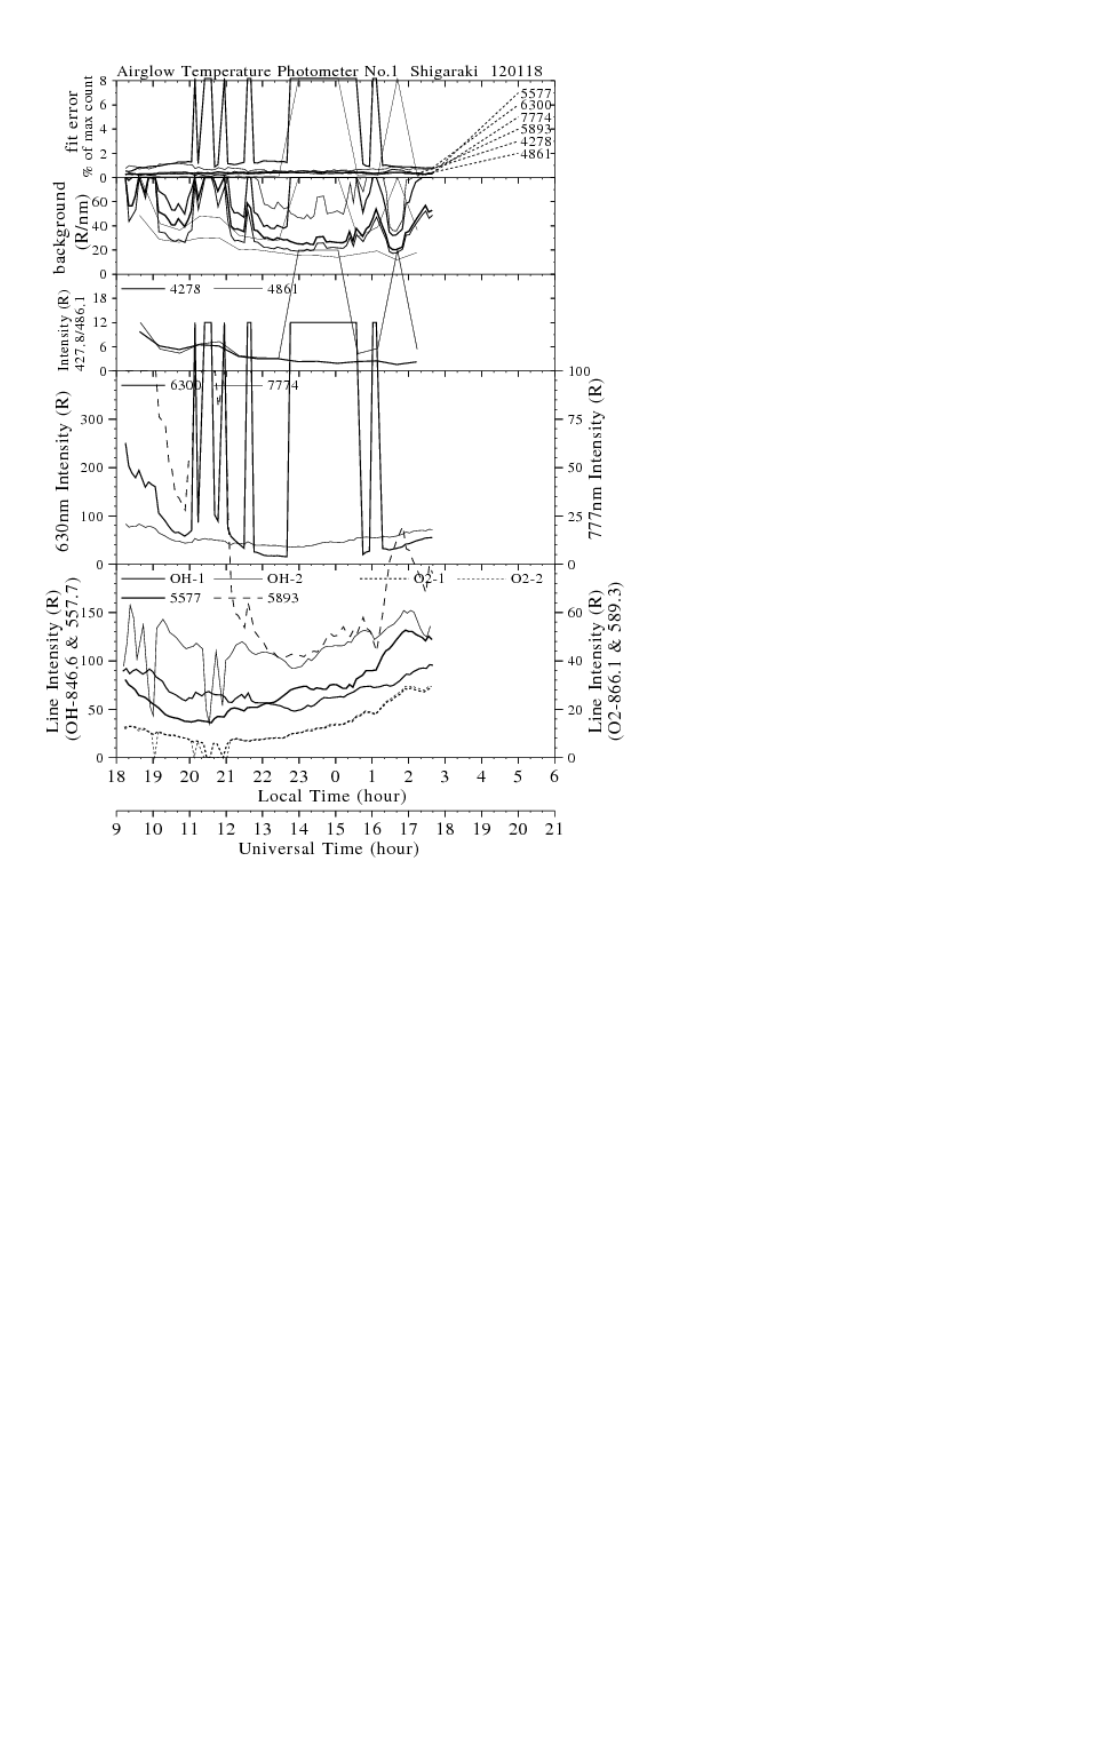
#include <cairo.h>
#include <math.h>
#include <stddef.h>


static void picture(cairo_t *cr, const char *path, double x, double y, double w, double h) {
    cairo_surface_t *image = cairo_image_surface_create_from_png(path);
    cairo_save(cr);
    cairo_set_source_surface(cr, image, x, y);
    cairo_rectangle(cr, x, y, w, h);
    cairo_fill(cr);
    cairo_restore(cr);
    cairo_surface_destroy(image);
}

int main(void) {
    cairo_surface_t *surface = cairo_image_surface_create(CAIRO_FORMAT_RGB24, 1108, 1748);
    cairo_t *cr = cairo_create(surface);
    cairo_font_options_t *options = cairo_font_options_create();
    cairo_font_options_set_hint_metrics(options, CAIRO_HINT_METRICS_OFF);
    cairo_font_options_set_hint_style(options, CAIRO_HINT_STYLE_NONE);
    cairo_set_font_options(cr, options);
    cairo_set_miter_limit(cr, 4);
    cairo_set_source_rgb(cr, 1, 1, 1);
    cairo_paint(cr);
    picture(cr, "img1.png", 45, 64, 580, 794);
    cairo_surface_write_to_png(surface, "page.png");
    cairo_font_options_destroy(options);
    cairo_destroy(cr);
    cairo_surface_destroy(surface);
    return 0;
}
